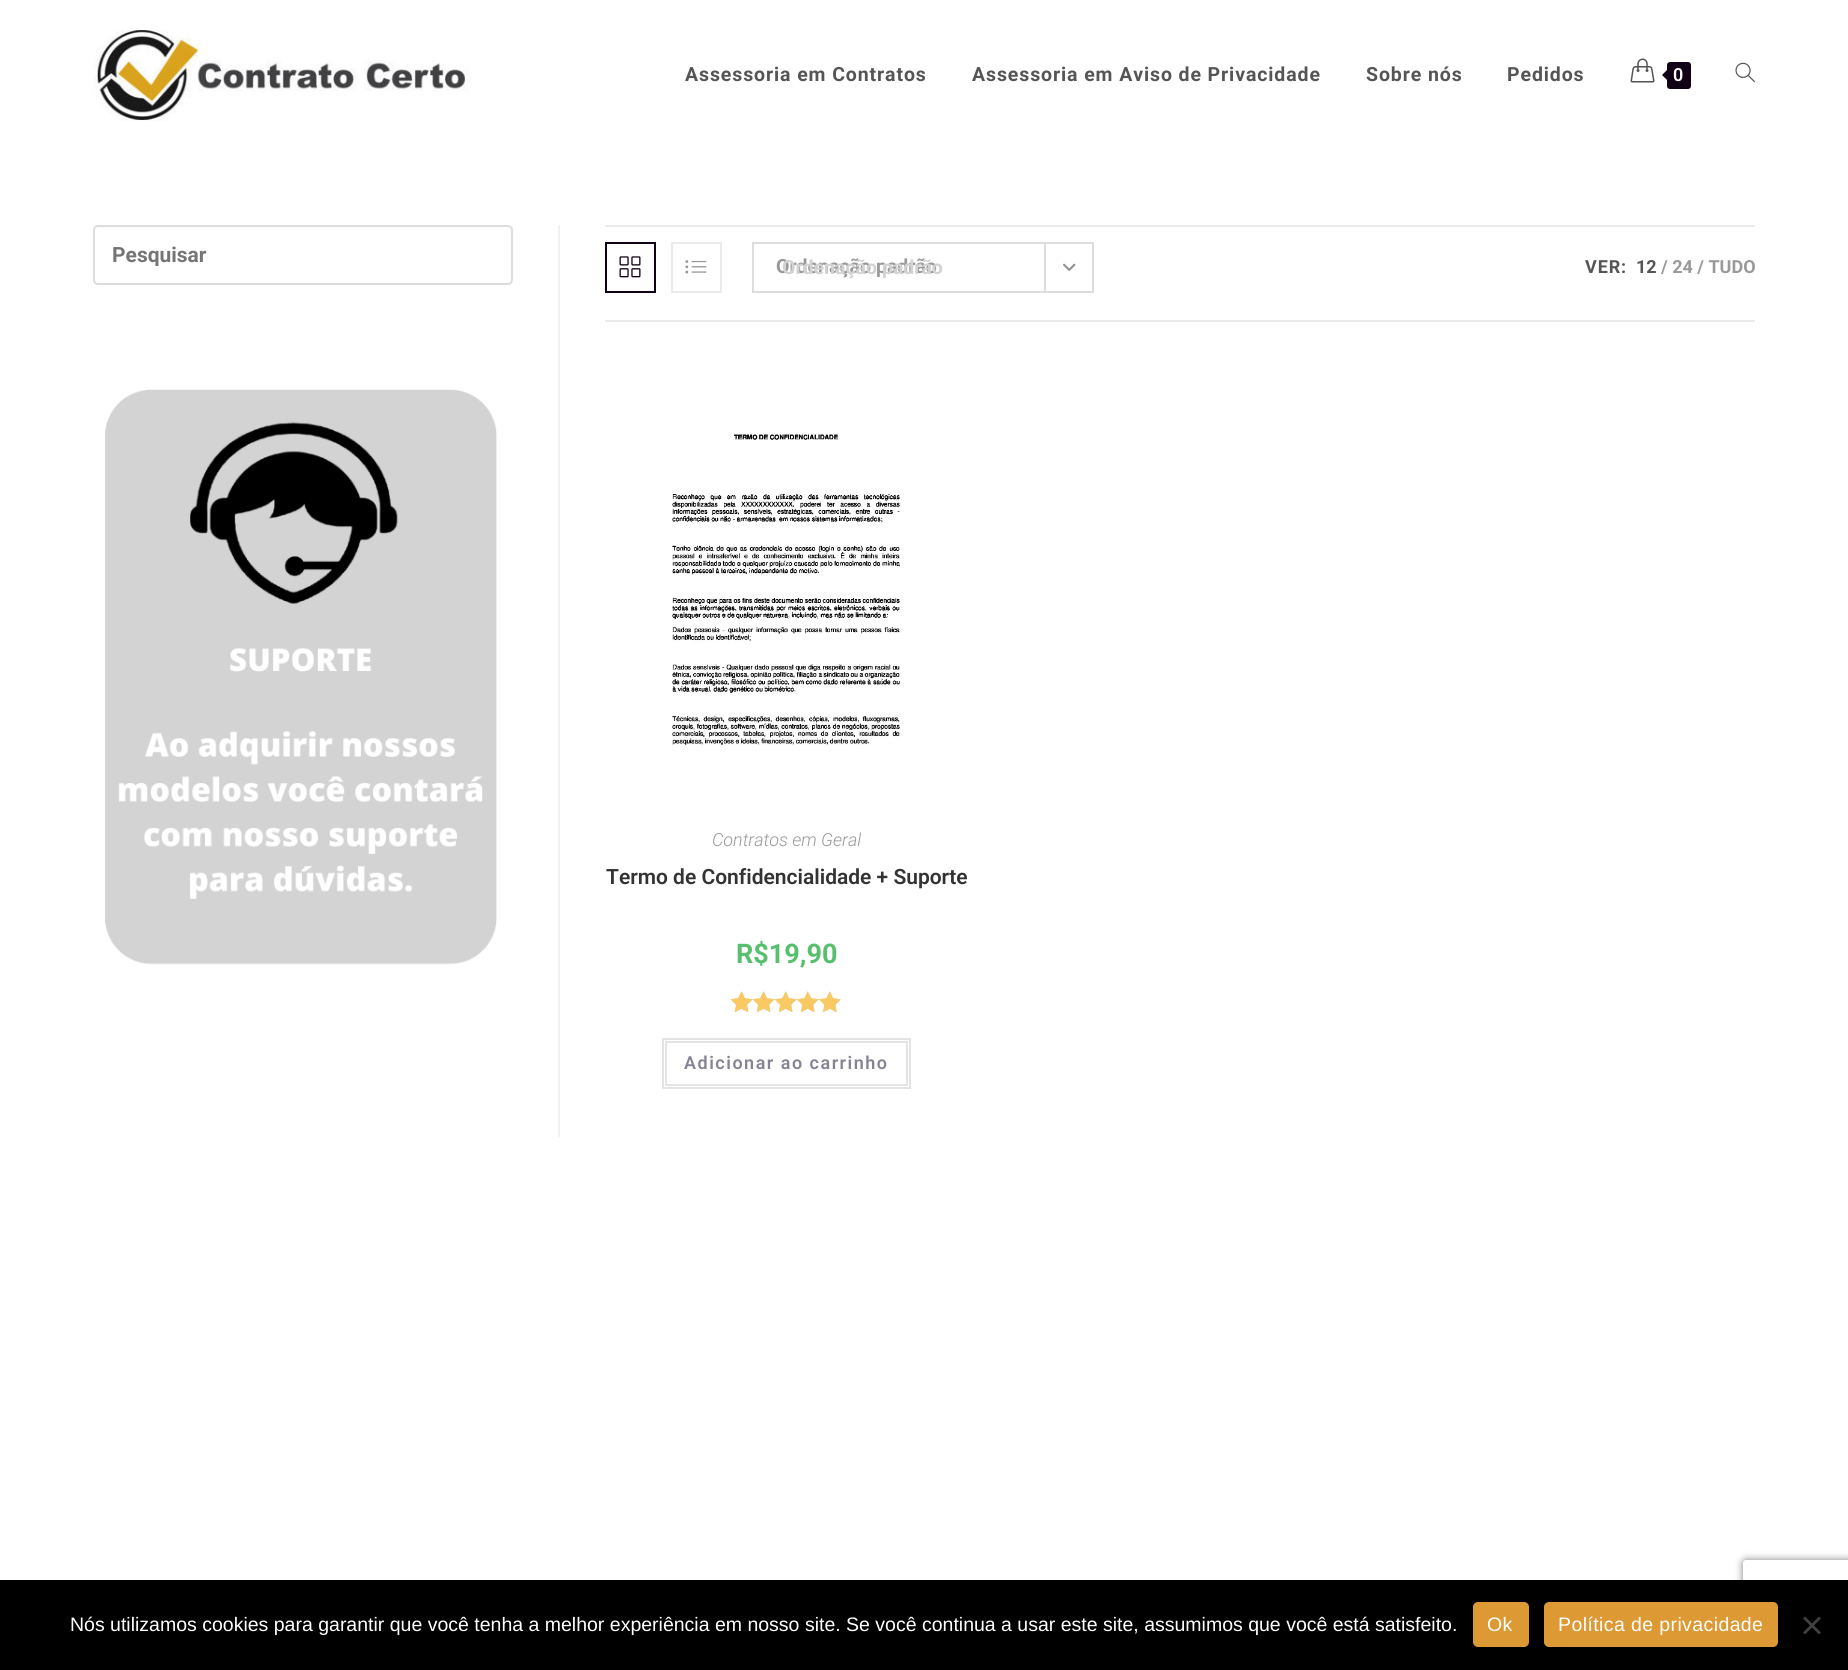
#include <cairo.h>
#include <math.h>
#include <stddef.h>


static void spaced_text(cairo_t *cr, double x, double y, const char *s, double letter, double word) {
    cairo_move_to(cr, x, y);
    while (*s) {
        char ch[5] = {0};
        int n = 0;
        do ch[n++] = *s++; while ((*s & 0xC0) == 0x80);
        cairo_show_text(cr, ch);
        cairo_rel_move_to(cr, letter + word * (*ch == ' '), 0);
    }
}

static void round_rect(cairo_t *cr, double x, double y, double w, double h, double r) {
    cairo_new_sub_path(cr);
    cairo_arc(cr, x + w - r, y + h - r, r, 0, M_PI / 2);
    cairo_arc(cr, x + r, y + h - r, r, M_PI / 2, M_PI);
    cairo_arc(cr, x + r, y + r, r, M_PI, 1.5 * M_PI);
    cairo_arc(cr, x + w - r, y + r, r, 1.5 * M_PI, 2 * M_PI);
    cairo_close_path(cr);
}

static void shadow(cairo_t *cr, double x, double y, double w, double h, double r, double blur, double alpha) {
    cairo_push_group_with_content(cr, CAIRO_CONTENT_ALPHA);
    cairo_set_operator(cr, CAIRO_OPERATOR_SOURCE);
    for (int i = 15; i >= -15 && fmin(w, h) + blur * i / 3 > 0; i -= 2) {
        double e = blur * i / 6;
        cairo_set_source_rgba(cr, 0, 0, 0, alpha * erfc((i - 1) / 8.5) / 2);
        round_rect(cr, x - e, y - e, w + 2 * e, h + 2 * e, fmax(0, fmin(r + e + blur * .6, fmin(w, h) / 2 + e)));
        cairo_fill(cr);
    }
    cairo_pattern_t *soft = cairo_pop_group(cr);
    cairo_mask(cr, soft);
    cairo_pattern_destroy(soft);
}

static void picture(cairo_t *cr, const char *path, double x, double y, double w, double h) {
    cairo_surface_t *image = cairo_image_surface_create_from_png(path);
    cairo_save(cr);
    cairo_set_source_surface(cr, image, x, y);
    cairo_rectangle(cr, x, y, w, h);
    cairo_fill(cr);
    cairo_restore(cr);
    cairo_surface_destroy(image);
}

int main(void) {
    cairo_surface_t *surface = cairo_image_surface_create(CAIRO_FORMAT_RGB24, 1848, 1670);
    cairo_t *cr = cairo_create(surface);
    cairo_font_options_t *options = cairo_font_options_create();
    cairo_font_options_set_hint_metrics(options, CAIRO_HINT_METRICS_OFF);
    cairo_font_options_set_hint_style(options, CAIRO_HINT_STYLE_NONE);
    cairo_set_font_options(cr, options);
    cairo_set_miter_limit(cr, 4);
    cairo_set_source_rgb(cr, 1, 1, 1);
    cairo_paint(cr);
    picture(cr, "img1.png", 93, 30, 377, 92);
    cairo_select_font_face(cr, "Roboto", CAIRO_FONT_SLANT_NORMAL, CAIRO_FONT_WEIGHT_BOLD);
    cairo_set_font_size(cr, 19.5);
    cairo_set_source_rgb(cr, 0.333, 0.333, 0.333);
    spaced_text(cr, 685, 81, "Assessoria em Contratos", 0.9, 0);
    spaced_text(cr, 972, 81, "Assessoria em Aviso de Privacidade", 0.9, 0);
    spaced_text(cr, 1366, 81, "Sobre nós", 0.9, 0);
    spaced_text(cr, 1507, 81, "Pedidos", 0.9, 0);
    picture(cr, "img2.png", 1630, 58, 25, 25);
    cairo_set_source_rgb(cr, 0.063, 0.004, 0.086);
    round_rect(cr, 1667, 62, 24, 27, 3);
    cairo_fill(cr);
    cairo_new_path(cr);
    cairo_move_to(cr, 1669.5, 67.5);
    cairo_line_to(cr, 1669.5, 82.5);
    cairo_line_to(cr, 1662, 75);
    cairo_close_path(cr);
    cairo_fill(cr);
    cairo_select_font_face(cr, "Roboto SemiBold", CAIRO_FONT_SLANT_NORMAL, CAIRO_FONT_WEIGHT_NORMAL);
    cairo_set_font_size(cr, 18);
    cairo_set_source_rgb(cr, 1, 1, 1);
    cairo_move_to(cr, 1673, 81);
    cairo_show_text(cr, "0");
    picture(cr, "img3.png", 1735, 62, 20, 21);
    round_rect(cr, 94, 226, 418, 58, 4);
    cairo_set_source_rgb(cr, 0.867, 0.867, 0.867);
    cairo_stroke(cr);
    cairo_save(cr);
    cairo_rectangle(cr, 113, 242, 381, 24);
    cairo_clip(cr);
    cairo_select_font_face(cr, "Roboto", CAIRO_FONT_SLANT_NORMAL, CAIRO_FONT_WEIGHT_BOLD);
    cairo_set_font_size(cr, 21);
    cairo_set_source_rgb(cr, 0.459, 0.459, 0.459);
    cairo_move_to(cr, 112, 262);
    cairo_show_text(cr, "Pesquisar");
    cairo_restore(cr);
    picture(cr, "img4.png", 105, 389, 392, 576);
    cairo_set_source_rgb(cr, 0.945, 0.945, 0.945);
    cairo_rectangle(cr, 558, 225, 2, 912);
    cairo_fill(cr);
    cairo_set_source_rgb(cr, 0.918, 0.918, 0.918);
    cairo_rectangle(cr, 605, 225, 1150, 2);
    cairo_fill(cr);
    cairo_rectangle(cr, 605, 320, 1150, 2);
    cairo_fill(cr);
    cairo_rectangle(cr, 606, 243, 49, 49);
    cairo_set_source_rgb(cr, 0.063, 0.004, 0.086);
    cairo_stroke(cr);
    picture(cr, "img5.png", 619, 256, 22, 22);
    cairo_rectangle(cr, 672, 243, 49, 49);
    cairo_set_source_rgb(cr, 0.918, 0.918, 0.918);
    cairo_stroke(cr);
    picture(cr, "img6.png", 685, 260, 22, 14);
    cairo_rectangle(cr, 753, 243, 340, 49);
    cairo_set_source_rgb(cr, 0.867, 0.867, 0.867);
    cairo_stroke(cr);
    cairo_select_font_face(cr, "Roboto", CAIRO_FONT_SLANT_NORMAL, CAIRO_FONT_WEIGHT_BOLD);
    cairo_set_font_size(cr, 19.5);
    cairo_set_source_rgb(cr, 0.6, 0.6, 0.6);
    cairo_move_to(cr, 776, 273);
    cairo_show_text(cr, "Ordenação padrão");
    cairo_set_source_rgb(cr, 0.867, 0.867, 0.867);
    cairo_rectangle(cr, 1044, 243, 2, 48);
    cairo_fill(cr);
    picture(cr, "img7.png", 1063, 263, 13, 8);
    cairo_set_source_rgb(cr, 0.824, 0.824, 0.824);
    cairo_move_to(cr, 782, 274);
    cairo_show_text(cr, "Ordenação padrão");
    cairo_set_font_size(cr, 18);
    cairo_set_source_rgb(cr, 0.333, 0.333, 0.333);
    spaced_text(cr, 1585, 273, "VER:", 0.9, 0);
    cairo_move_to(cr, 1636, 273);
    cairo_show_text(cr, "12");
    cairo_set_source_rgb(cr, 0.6, 0.6, 0.6);
    cairo_move_to(cr, 1661, 273);
    cairo_show_text(cr, "/ 24 / TUDO");
    picture(cr, "img8.png", 671, 433, 230, 312);
    cairo_select_font_face(cr, "Roboto Light", CAIRO_FONT_SLANT_ITALIC, CAIRO_FONT_WEIGHT_NORMAL);
    cairo_move_to(cr, 712, 846);
    cairo_show_text(cr, "Contratos em Geral");
    cairo_select_font_face(cr, "Roboto SemiBold", CAIRO_FONT_SLANT_NORMAL, CAIRO_FONT_WEIGHT_NORMAL);
    cairo_set_font_size(cr, 21);
    cairo_set_source_rgb(cr, 0.2, 0.2, 0.2);
    cairo_move_to(cr, 606, 884);
    cairo_show_text(cr, "Termo de Confidencialidade + Suporte");
    cairo_select_font_face(cr, "Roboto", CAIRO_FONT_SLANT_NORMAL, CAIRO_FONT_WEIGHT_BOLD);
    cairo_set_font_size(cr, 27);
    cairo_set_source_rgb(cr, 0.341, 0.749, 0.427);
    cairo_move_to(cr, 736, 963);
    cairo_show_text(cr, "R$19,90");
    picture(cr, "img9.png", 731, 991, 110, 21);
    picture(cr, "img10.png", 731, 991, 110, 22);
    cairo_rectangle(cr, 663, 1039, 247, 49);
    cairo_set_source_rgb(cr, 0.894, 0.894, 0.894);
    cairo_stroke(cr);
    cairo_rectangle(cr, 666, 1042, 241, 43);
    cairo_stroke(cr);
    cairo_select_font_face(cr, "Roboto SemiBold", CAIRO_FONT_SLANT_NORMAL, CAIRO_FONT_WEIGHT_NORMAL);
    cairo_set_font_size(cr, 18);
    cairo_set_source_rgb(cr, 0.518, 0.518, 0.58);
    spaced_text(cr, 684, 1069, "Adicionar ao carrinho", 1.5, 0);
    cairo_save(cr);
    cairo_set_fill_rule(cr, CAIRO_FILL_RULE_EVEN_ODD);
    cairo_new_path(cr);
    cairo_move_to(cr, 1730, 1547);
    cairo_line_to(cr, 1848, 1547);
    cairo_line_to(cr, 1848, 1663);
    cairo_line_to(cr, 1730, 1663);
    cairo_close_path(cr);
    cairo_move_to(cr, 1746, 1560);
    cairo_line_to(cr, 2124, 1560);
    cairo_curve_to(cr, 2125.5, 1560, 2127, 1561.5, 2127, 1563);
    cairo_line_to(cr, 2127, 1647);
    cairo_curve_to(cr, 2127, 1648.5, 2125.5, 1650, 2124, 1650);
    cairo_line_to(cr, 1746, 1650);
    cairo_curve_to(cr, 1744.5, 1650, 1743, 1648.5, 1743, 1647);
    cairo_line_to(cr, 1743, 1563);
    cairo_curve_to(cr, 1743, 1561.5, 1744.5, 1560, 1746, 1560);
    cairo_close_path(cr);
    cairo_clip(cr);
    cairo_set_source_rgb(cr, 0.502, 0.502, 0.502);
    shadow(cr, 1743, 1560, 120, 90, 3, 4, 1);
    cairo_restore(cr);
    cairo_set_source_rgb(cr, 0, 0, 0);
    cairo_rectangle(cr, 0, 1580, 1848, 90);
    cairo_fill(cr);
    cairo_select_font_face(cr, "Liberation Sans", CAIRO_FONT_SLANT_NORMAL, CAIRO_FONT_WEIGHT_NORMAL);
    cairo_set_font_size(cr, 19.5);
    cairo_set_source_rgb(cr, 1, 1, 1);
    cairo_move_to(cr, 70, 1631);
    cairo_show_text(cr, "Nós utilizamos cookies para garantir que você tenha a melhor experiência em nosso site. Se você continua a usar este site, assumimos que você está satisfeito.");
    cairo_set_source_rgb(cr, 0.867, 0.6, 0.2);
    round_rect(cr, 1473, 1602, 56, 45, 5);
    cairo_fill(cr);
    cairo_set_source_rgb(cr, 1, 1, 1);
    spaced_text(cr, 1487, 1631, "Ok", 0.4, 0);
    cairo_set_source_rgb(cr, 0.867, 0.6, 0.2);
    round_rect(cr, 1544, 1602, 234, 45, 5);
    cairo_fill(cr);
    cairo_set_source_rgb(cr, 1, 1, 1);
    spaced_text(cr, 1558, 1631, "Política de privacidade", 0.4, 0);
    cairo_set_source_rgb(cr, 0.251, 0.251, 0.251);
    cairo_new_path(cr);
    cairo_move_to(cr, 1819, 1616.5);
    cairo_line_to(cr, 1821, 1618.5);
    cairo_line_to(cr, 1805, 1634.5);
    cairo_line_to(cr, 1803, 1632.5);
    cairo_close_path(cr);
    cairo_fill(cr);
    cairo_new_path(cr);
    cairo_move_to(cr, 1803, 1618.5);
    cairo_line_to(cr, 1805, 1616.5);
    cairo_line_to(cr, 1821, 1632.5);
    cairo_line_to(cr, 1819, 1634.5);
    cairo_close_path(cr);
    cairo_fill(cr);
    cairo_surface_write_to_png(surface, "page.png");
    cairo_font_options_destroy(options);
    cairo_destroy(cr);
    cairo_surface_destroy(surface);
    return 0;
}
